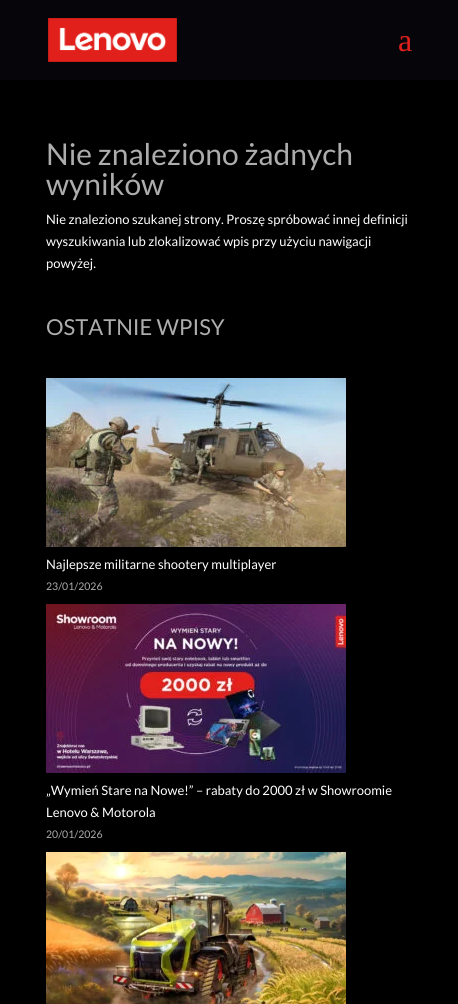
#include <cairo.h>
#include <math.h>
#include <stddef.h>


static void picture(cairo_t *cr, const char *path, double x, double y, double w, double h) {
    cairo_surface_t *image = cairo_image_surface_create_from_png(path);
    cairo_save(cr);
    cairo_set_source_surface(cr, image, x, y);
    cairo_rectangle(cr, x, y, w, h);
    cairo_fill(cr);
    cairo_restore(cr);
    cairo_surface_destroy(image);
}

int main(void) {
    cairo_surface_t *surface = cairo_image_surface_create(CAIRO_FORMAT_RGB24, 458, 1004);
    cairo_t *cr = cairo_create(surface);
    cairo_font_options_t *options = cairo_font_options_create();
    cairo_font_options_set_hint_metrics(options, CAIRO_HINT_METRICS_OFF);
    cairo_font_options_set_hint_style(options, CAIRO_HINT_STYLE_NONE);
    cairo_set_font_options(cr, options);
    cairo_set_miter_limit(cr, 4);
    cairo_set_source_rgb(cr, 0, 0, 0);
    cairo_paint(cr);
    cairo_set_source_rgb(cr, 0.024, 0.02, 0.039);
    cairo_rectangle(cr, 0, 0, 458, 80);
    cairo_fill(cr);
    picture(cr, "img1.png", 48, 18, 129, 44);
    cairo_select_font_face(cr, "Liberation Serif", CAIRO_FONT_SLANT_NORMAL, CAIRO_FONT_WEIGHT_NORMAL);
    cairo_set_font_size(cr, 32);
    cairo_set_source_rgb(cr, 0.882, 0.125, 0.106);
    cairo_move_to(cr, 398, 51);
    cairo_show_text(cr, "a");
    cairo_select_font_face(cr, "Lato", CAIRO_FONT_SLANT_NORMAL, CAIRO_FONT_WEIGHT_NORMAL);
    cairo_set_font_size(cr, 30);
    cairo_set_source_rgb(cr, 0.678, 0.678, 0.678);
    cairo_move_to(cr, 46, 165);
    cairo_show_text(cr, "Nie znaleziono żadnych");
    cairo_move_to(cr, 46, 195);
    cairo_show_text(cr, "wyników");
    cairo_set_font_size(cr, 13);
    cairo_set_source_rgb(cr, 1, 1, 1);
    cairo_move_to(cr, 46, 224);
    cairo_show_text(cr, "Nie znaleziono szukanej strony. Proszę spróbować innej definicji");
    cairo_move_to(cr, 46, 246);
    cairo_show_text(cr, "wyszukiwania lub zlokalizować wpis przy użyciu nawigacji");
    cairo_move_to(cr, 46, 268);
    cairo_show_text(cr, "powyżej.");
    cairo_set_font_size(cr, 22);
    cairo_set_source_rgb(cr, 0.678, 0.678, 0.678);
    cairo_move_to(cr, 46, 335);
    cairo_show_text(cr, "OSTATNIE WPISY");
    picture(cr, "img2.png", 46, 378, 300, 169);
    cairo_set_font_size(cr, 13);
    cairo_set_source_rgb(cr, 1, 1, 1);
    cairo_move_to(cr, 46, 569);
    cairo_show_text(cr, "Najlepsze militarne shootery multiplayer");
    cairo_set_font_size(cr, 10.5);
    cairo_set_source_rgb(cr, 0.678, 0.678, 0.678);
    cairo_move_to(cr, 46, 590);
    cairo_show_text(cr, "23/01/2026");
    picture(cr, "img3.png", 46, 604, 300, 169);
    cairo_set_font_size(cr, 13);
    cairo_set_source_rgb(cr, 1, 1, 1);
    cairo_move_to(cr, 46, 795);
    cairo_show_text(cr, "„Wymień Stare na Nowe!” – rabaty do 2000 zł w Showroomie");
    cairo_move_to(cr, 46, 817);
    cairo_show_text(cr, "Lenovo & Motorola");
    cairo_set_font_size(cr, 10.5);
    cairo_set_source_rgb(cr, 0.678, 0.678, 0.678);
    cairo_move_to(cr, 46, 838);
    cairo_show_text(cr, "20/01/2026");
    picture(cr, "img4.png", 46, 852, 300, 152);
    cairo_surface_write_to_png(surface, "page.png");
    cairo_font_options_destroy(options);
    cairo_destroy(cr);
    cairo_surface_destroy(surface);
    return 0;
}
